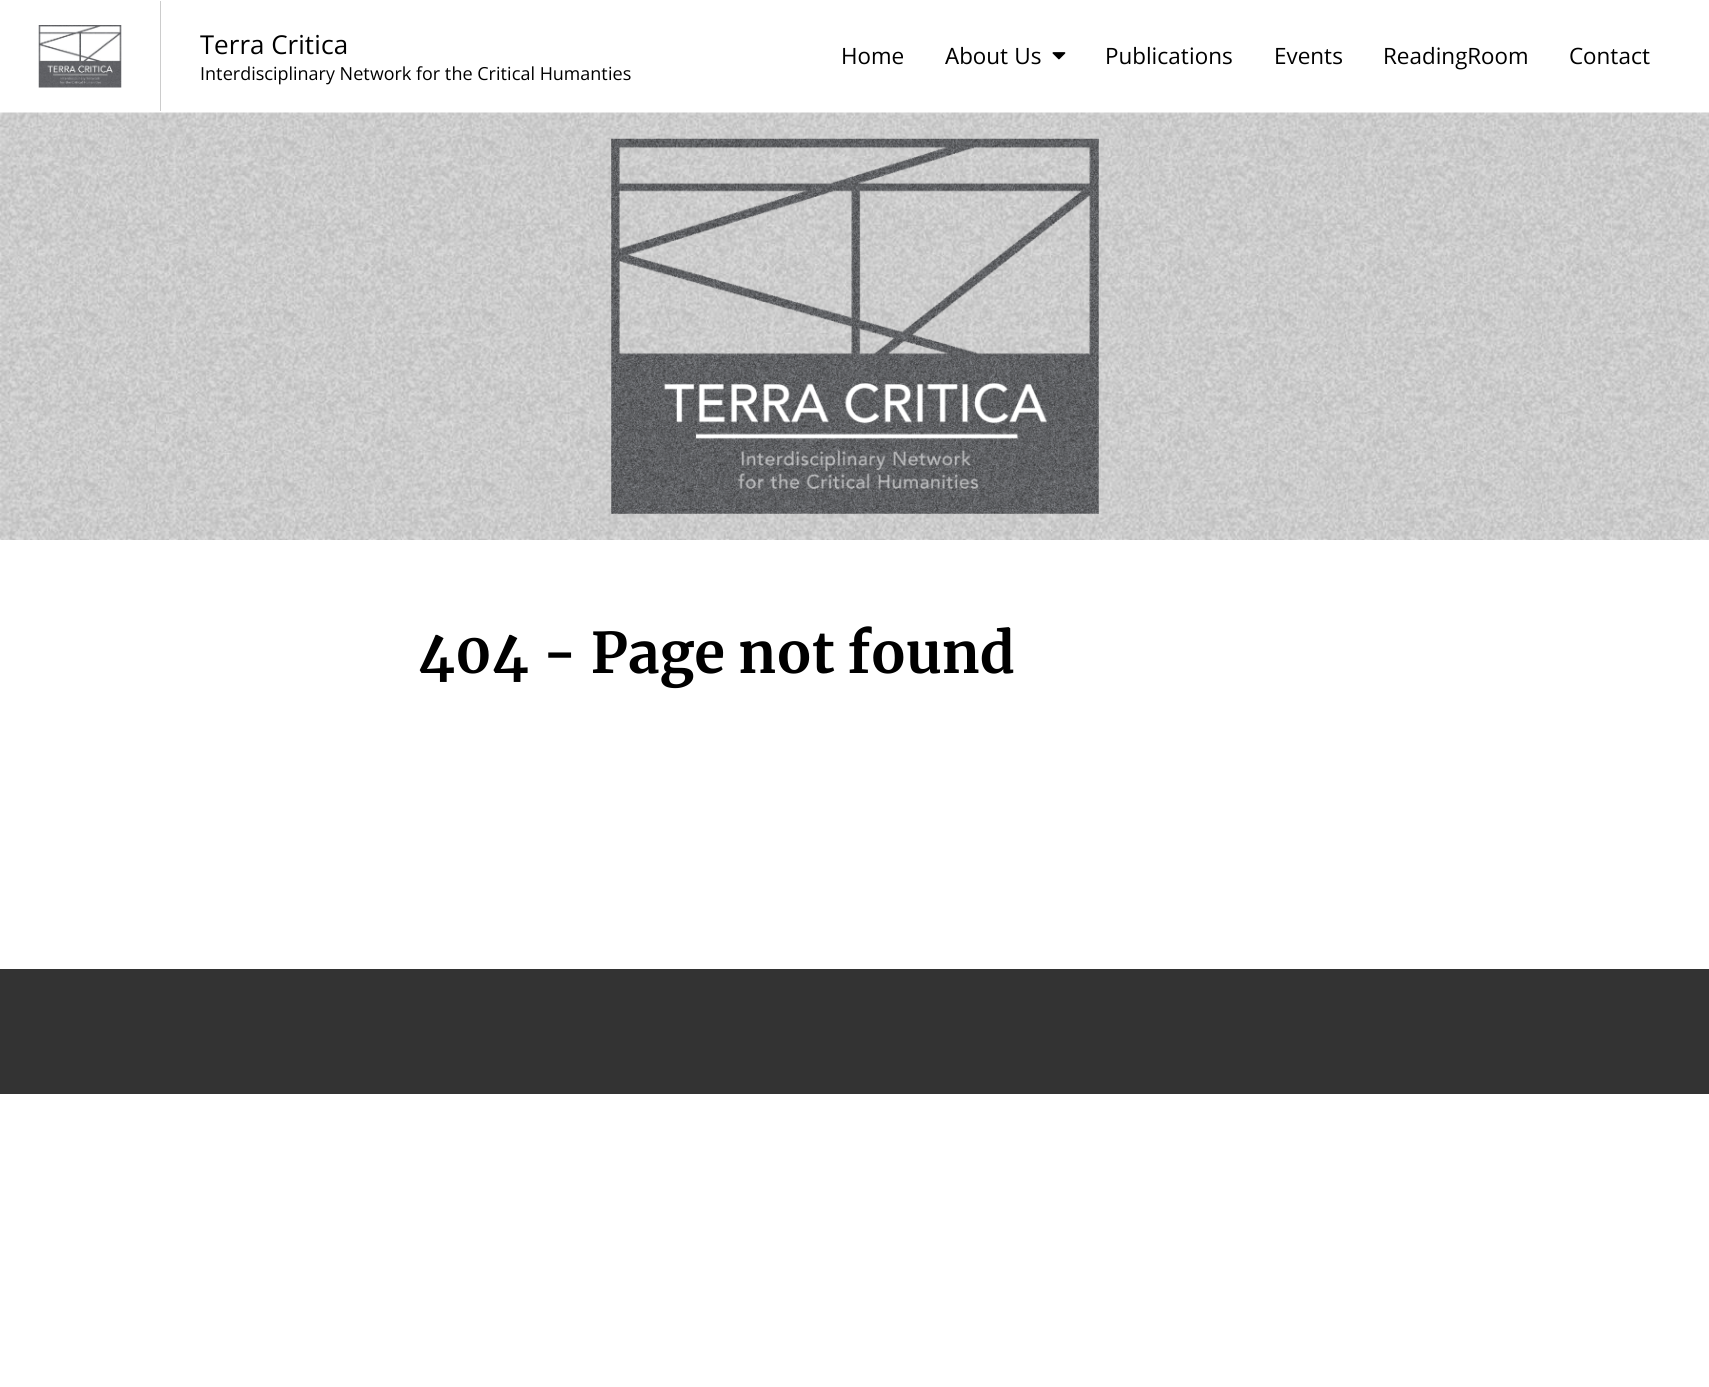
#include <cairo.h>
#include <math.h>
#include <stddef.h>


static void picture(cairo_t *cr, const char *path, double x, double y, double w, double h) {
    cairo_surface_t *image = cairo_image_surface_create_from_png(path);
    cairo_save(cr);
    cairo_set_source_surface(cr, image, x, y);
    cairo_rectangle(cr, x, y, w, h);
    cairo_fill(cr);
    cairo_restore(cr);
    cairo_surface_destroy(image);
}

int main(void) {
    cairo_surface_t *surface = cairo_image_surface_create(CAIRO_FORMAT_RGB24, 1709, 1387);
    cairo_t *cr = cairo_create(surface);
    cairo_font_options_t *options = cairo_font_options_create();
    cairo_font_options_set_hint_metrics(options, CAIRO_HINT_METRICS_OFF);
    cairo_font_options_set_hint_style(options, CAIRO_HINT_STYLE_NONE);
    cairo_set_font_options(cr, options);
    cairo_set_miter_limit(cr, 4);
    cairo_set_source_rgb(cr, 1, 1, 1);
    cairo_paint(cr);
    picture(cr, "img1.png", 38, 25, 84, 63);
    cairo_set_source_rgb(cr, 0.8, 0.8, 0.8);
    cairo_rectangle(cr, 160, 1, 1, 110);
    cairo_fill(cr);
    cairo_select_font_face(cr, "Open Sans", CAIRO_FONT_SLANT_NORMAL, CAIRO_FONT_WEIGHT_NORMAL);
    cairo_set_font_size(cr, 26);
    cairo_set_source_rgb(cr, 0, 0, 0);
    cairo_move_to(cr, 200, 54);
    cairo_show_text(cr, "Terra Critica");
    cairo_set_font_size(cr, 18);
    cairo_move_to(cr, 200, 80);
    cairo_show_text(cr, "Interdisciplinary Network for the Critical Humanties");
    cairo_set_font_size(cr, 22.5);
    cairo_move_to(cr, 841, 64);
    cairo_show_text(cr, "Home");
    cairo_move_to(cr, 945, 64);
    cairo_show_text(cr, "About Us");
    picture(cr, "img2.png", 1052, 52, 14, 8);
    cairo_move_to(cr, 1105, 64);
    cairo_show_text(cr, "Publications");
    cairo_move_to(cr, 1274, 64);
    cairo_show_text(cr, "Events");
    cairo_move_to(cr, 1383, 64);
    cairo_show_text(cr, "ReadingRoom");
    cairo_move_to(cr, 1569, 64);
    cairo_show_text(cr, "Contact");
    picture(cr, "img3.png", 0, 112, 1709, 428);
    picture(cr, "img4.png", 611, 138, 488, 376);
    cairo_select_font_face(cr, "Merriweather", CAIRO_FONT_SLANT_NORMAL, CAIRO_FONT_WEIGHT_BOLD);
    cairo_set_font_size(cr, 56);
    cairo_move_to(cr, 418, 673);
    cairo_show_text(cr, "404 - Page not found");
    cairo_set_source_rgb(cr, 0.2, 0.2, 0.2);
    cairo_rectangle(cr, 0, 969, 1709, 125);
    cairo_fill(cr);
    cairo_surface_write_to_png(surface, "page.png");
    cairo_font_options_destroy(options);
    cairo_destroy(cr);
    cairo_surface_destroy(surface);
    return 0;
}
